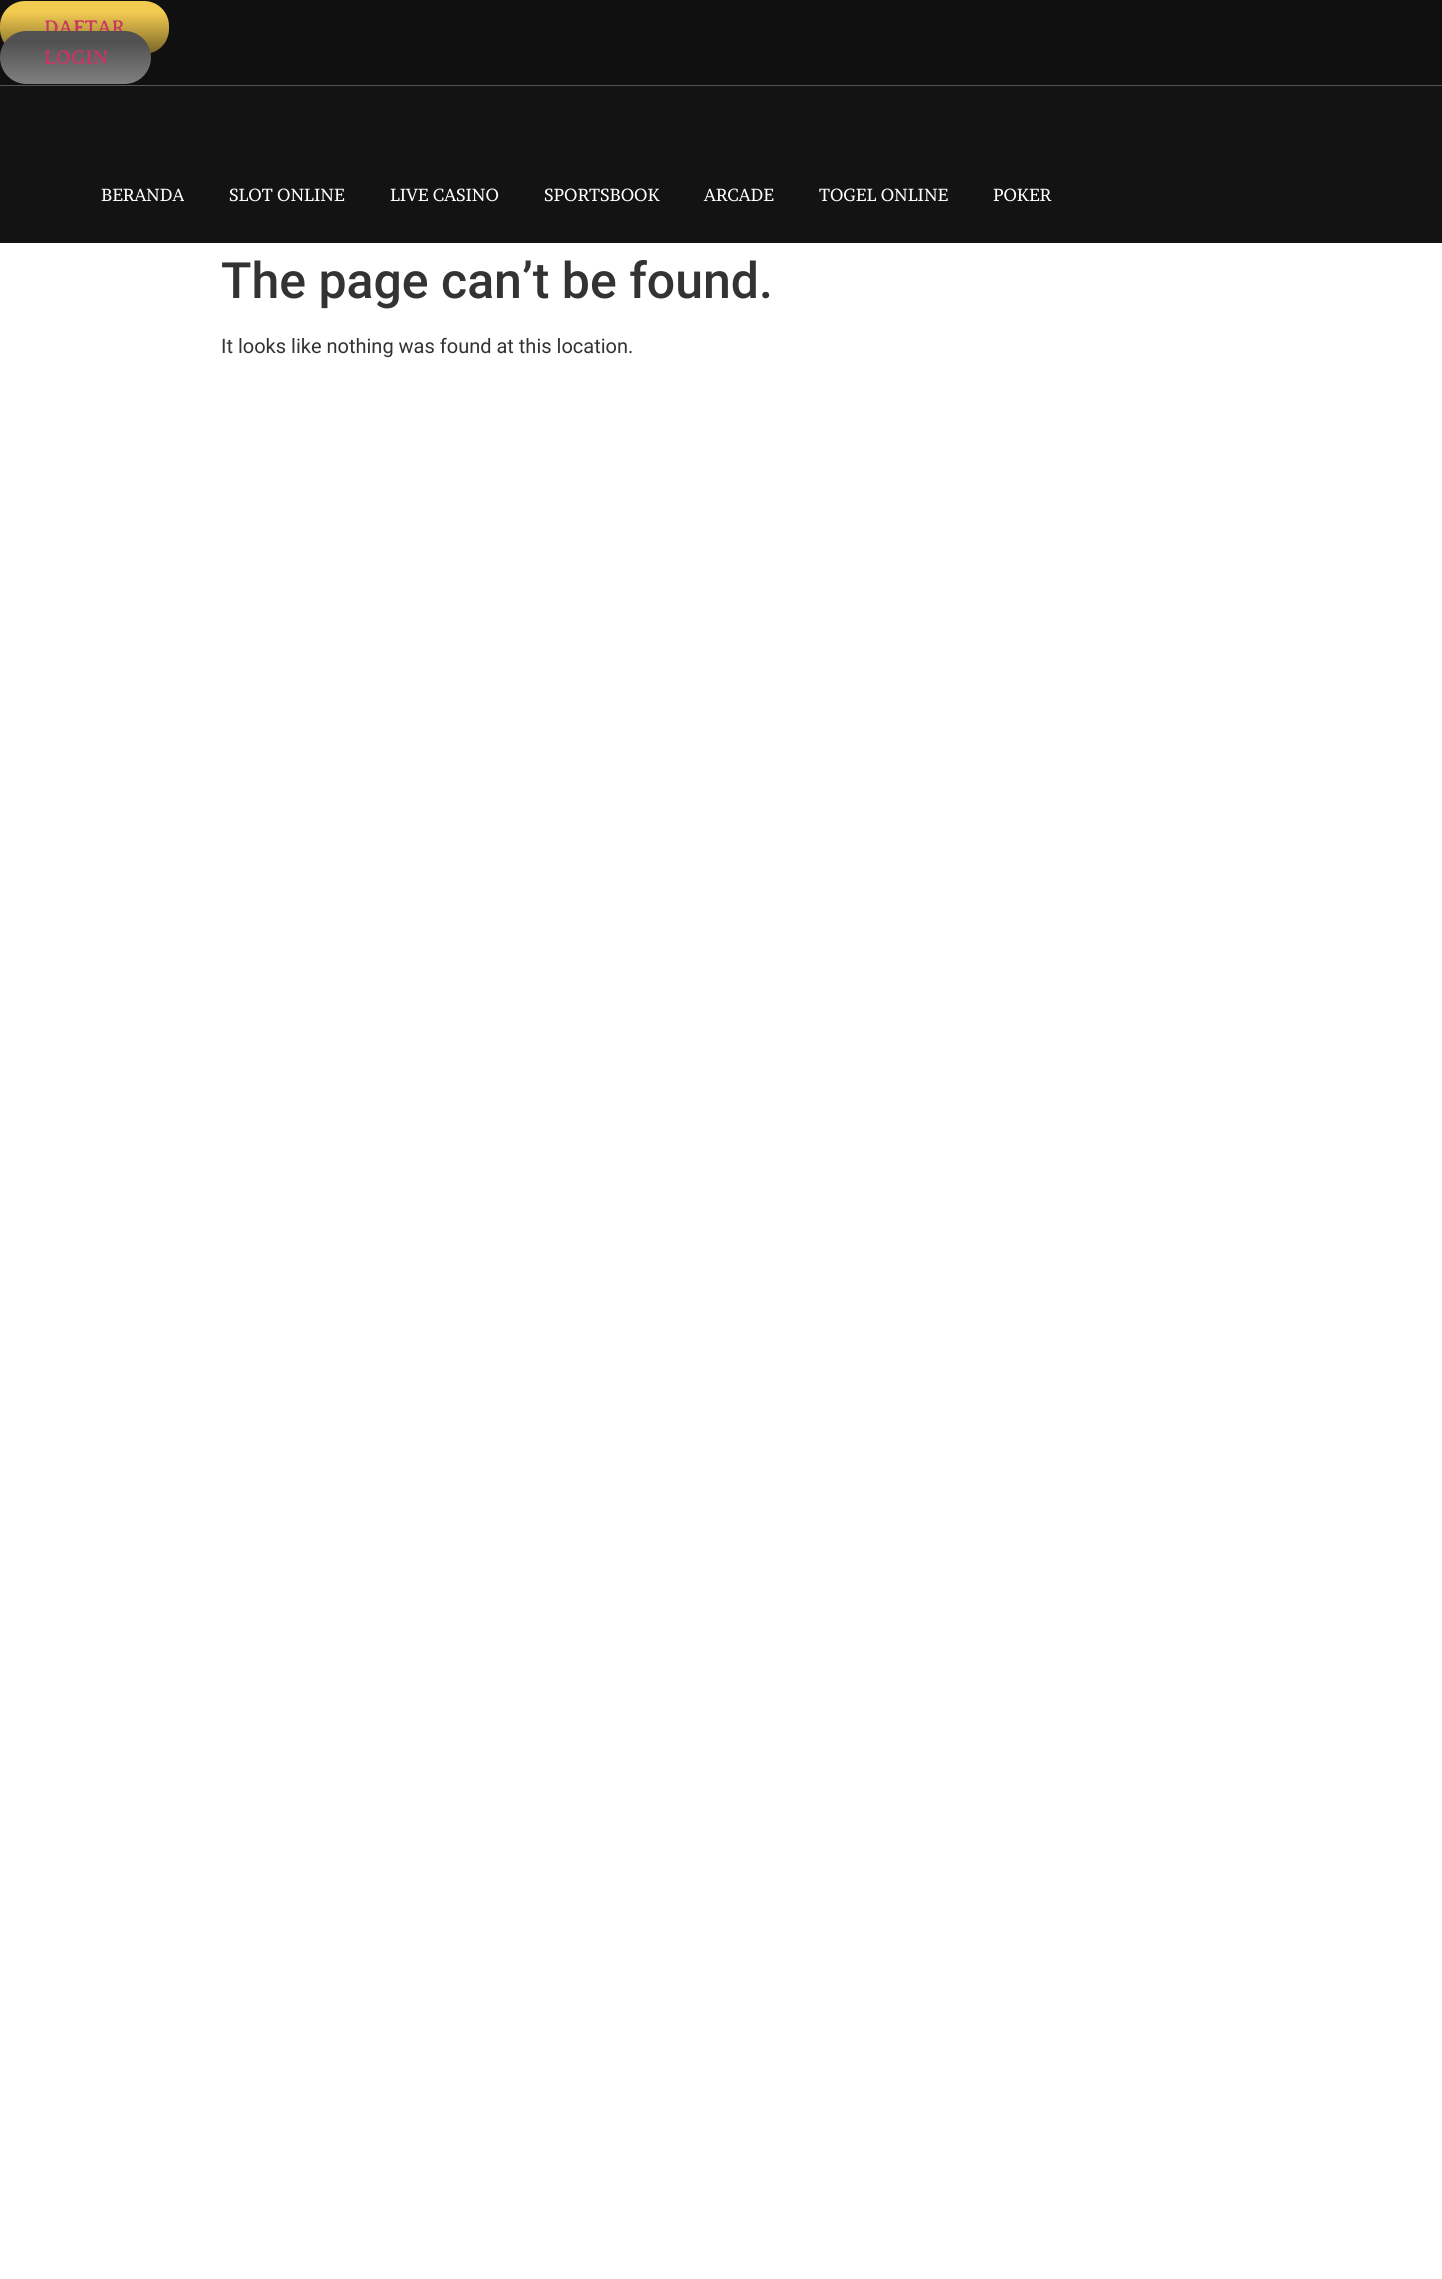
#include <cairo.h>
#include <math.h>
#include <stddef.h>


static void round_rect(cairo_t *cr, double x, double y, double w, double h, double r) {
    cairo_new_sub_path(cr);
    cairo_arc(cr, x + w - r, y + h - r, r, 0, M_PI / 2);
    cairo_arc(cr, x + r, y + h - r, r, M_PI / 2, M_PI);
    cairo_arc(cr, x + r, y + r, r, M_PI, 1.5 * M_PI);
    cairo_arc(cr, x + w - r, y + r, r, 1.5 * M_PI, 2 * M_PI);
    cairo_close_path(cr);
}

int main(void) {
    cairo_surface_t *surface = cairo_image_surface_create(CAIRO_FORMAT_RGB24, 1442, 2279);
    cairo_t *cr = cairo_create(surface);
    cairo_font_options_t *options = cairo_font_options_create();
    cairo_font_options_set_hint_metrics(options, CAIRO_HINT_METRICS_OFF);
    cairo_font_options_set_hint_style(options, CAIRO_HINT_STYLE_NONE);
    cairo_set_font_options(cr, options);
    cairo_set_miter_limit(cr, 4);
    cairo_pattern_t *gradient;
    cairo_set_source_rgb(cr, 1, 1, 1);
    cairo_paint(cr);
    cairo_set_source_rgb(cr, 0.063, 0.063, 0.063);
    cairo_rectangle(cr, 0, 0, 1442, 85);
    cairo_fill(cr);
    cairo_set_source_rgb(cr, 0.333, 0.333, 0.333);
    cairo_rectangle(cr, 0, 85, 1442, 1);
    cairo_fill(cr);
    gradient = cairo_pattern_create_linear(84, 1.2, 84, 54);
    cairo_pattern_add_color_stop_rgba(gradient, 0.21, 0.953, 0.796, 0.318, 1);
    cairo_pattern_add_color_stop_rgba(gradient, 1, 0.467, 0.388, 0.153, 1);
    cairo_set_source(cr, gradient);
    cairo_pattern_destroy(gradient);
    round_rect(cr, 0, 1, 169, 53, 25);
    cairo_fill(cr);
    cairo_select_font_face(cr, "Averia Serif Libre", CAIRO_FONT_SLANT_NORMAL, CAIRO_FONT_WEIGHT_NORMAL);
    cairo_set_font_size(cr, 20);
    cairo_set_source_rgb(cr, 0.8, 0.2, 0.4);
    cairo_move_to(cr, 44, 34);
    cairo_show_text(cr, "DAFTAR");
    gradient = cairo_pattern_create_linear(76, 31, 76, 84);
    cairo_pattern_add_color_stop_rgba(gradient, 0.21, 0.318, 0.318, 0.318, 1);
    cairo_pattern_add_color_stop_rgba(gradient, 1, 0.502, 0.502, 0.502, 1);
    cairo_set_source(cr, gradient);
    cairo_pattern_destroy(gradient);
    round_rect(cr, 0, 31, 151, 53, 26.5);
    cairo_fill(cr);
    cairo_set_source_rgb(cr, 0.8, 0.2, 0.4);
    cairo_move_to(cr, 44, 64);
    cairo_show_text(cr, "LOGIN");
    cairo_set_source_rgb(cr, 0.078, 0.078, 0.078);
    cairo_rectangle(cr, 0, 86, 1442, 157);
    cairo_fill(cr);
    cairo_select_font_face(cr, "Brawler", CAIRO_FONT_SLANT_NORMAL, CAIRO_FONT_WEIGHT_NORMAL);
    cairo_set_font_size(cr, 17.5);
    cairo_set_source_rgb(cr, 1, 1, 1);
    cairo_move_to(cr, 101, 201);
    cairo_show_text(cr, "BERANDA");
    cairo_move_to(cr, 229, 201);
    cairo_show_text(cr, "SLOT ONLINE");
    cairo_move_to(cr, 390, 201);
    cairo_show_text(cr, "LIVE CASINO");
    cairo_move_to(cr, 544, 201);
    cairo_show_text(cr, "SPORTSBOOK");
    cairo_move_to(cr, 704, 201);
    cairo_show_text(cr, "ARCADE");
    cairo_move_to(cr, 819, 201);
    cairo_show_text(cr, "TOGEL ONLINE");
    cairo_move_to(cr, 993, 201);
    cairo_show_text(cr, "POKER");
    cairo_select_font_face(cr, "Roboto Medium", CAIRO_FONT_SLANT_NORMAL, CAIRO_FONT_WEIGHT_NORMAL);
    cairo_set_font_size(cr, 50);
    cairo_set_source_rgb(cr, 0.2, 0.2, 0.2);
    cairo_move_to(cr, 221, 298);
    cairo_show_text(cr, "The page can’t be found.");
    cairo_select_font_face(cr, "Roboto", CAIRO_FONT_SLANT_NORMAL, CAIRO_FONT_WEIGHT_NORMAL);
    cairo_set_font_size(cr, 20);
    cairo_move_to(cr, 221, 353);
    cairo_show_text(cr, "It looks like nothing was found at this location.");
    cairo_surface_write_to_png(surface, "page.png");
    cairo_font_options_destroy(options);
    cairo_destroy(cr);
    cairo_surface_destroy(surface);
    return 0;
}
